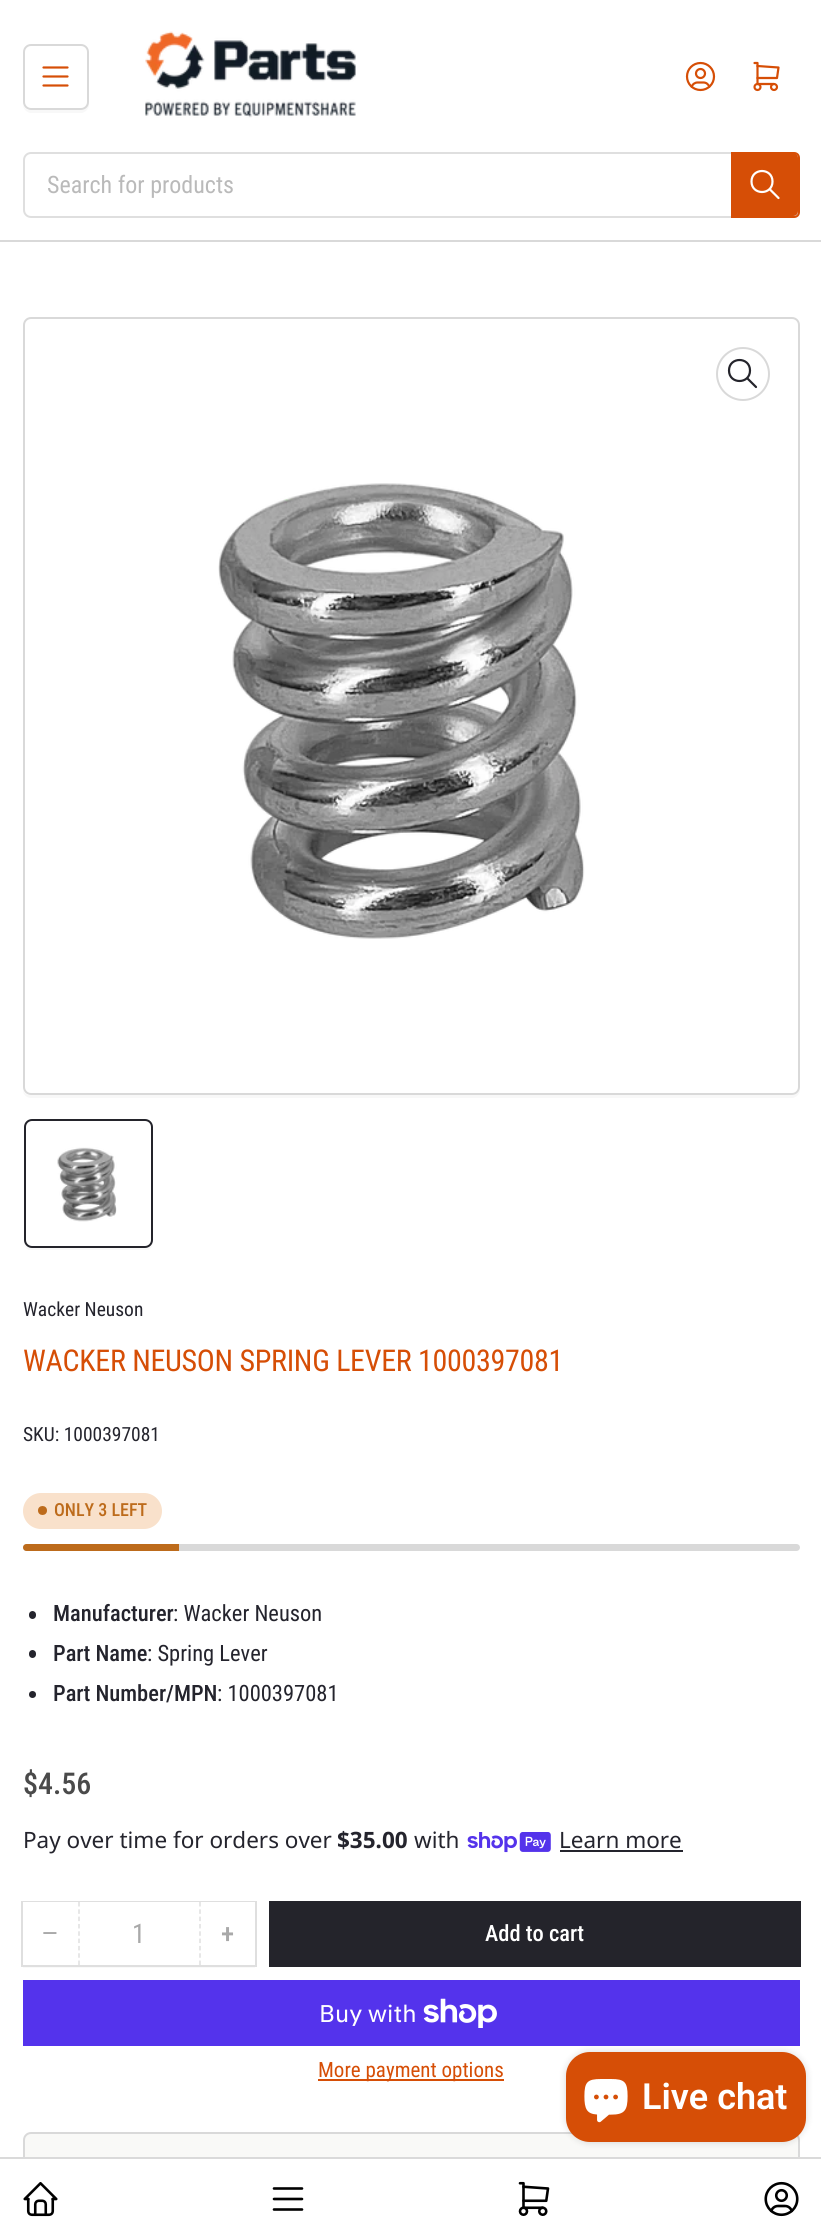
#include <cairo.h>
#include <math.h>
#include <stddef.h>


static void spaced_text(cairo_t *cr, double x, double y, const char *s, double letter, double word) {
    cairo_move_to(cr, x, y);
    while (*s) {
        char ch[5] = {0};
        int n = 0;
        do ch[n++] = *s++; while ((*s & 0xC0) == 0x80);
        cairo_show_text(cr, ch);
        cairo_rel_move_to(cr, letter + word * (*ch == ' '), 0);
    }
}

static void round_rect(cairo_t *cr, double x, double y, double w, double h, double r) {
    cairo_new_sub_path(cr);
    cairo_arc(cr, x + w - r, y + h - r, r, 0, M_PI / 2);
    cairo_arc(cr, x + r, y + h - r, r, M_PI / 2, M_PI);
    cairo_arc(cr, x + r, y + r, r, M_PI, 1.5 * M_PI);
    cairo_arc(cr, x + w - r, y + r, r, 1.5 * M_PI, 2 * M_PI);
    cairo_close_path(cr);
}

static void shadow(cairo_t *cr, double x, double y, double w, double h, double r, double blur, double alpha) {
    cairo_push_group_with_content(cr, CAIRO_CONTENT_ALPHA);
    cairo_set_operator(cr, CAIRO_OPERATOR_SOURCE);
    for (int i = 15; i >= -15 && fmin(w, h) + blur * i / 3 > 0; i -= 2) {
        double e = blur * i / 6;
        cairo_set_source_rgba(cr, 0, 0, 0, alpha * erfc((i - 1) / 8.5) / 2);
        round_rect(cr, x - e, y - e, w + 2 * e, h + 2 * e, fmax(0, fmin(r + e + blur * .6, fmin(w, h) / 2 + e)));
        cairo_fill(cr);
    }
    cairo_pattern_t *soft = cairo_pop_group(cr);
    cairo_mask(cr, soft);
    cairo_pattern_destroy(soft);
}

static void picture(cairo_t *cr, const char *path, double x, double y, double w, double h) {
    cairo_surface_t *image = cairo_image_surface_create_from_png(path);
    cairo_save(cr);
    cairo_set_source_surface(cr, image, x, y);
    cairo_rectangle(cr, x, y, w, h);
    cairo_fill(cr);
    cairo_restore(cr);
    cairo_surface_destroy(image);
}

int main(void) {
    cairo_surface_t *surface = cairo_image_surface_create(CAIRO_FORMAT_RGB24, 821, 2239);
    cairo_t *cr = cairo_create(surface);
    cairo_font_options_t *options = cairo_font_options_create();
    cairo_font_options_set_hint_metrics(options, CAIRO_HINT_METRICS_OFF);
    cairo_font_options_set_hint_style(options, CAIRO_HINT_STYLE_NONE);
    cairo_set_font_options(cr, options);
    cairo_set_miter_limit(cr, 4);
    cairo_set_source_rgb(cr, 1, 1, 1);
    cairo_paint(cr);
    cairo_set_source_rgb(cr, 0.969, 0.969, 0.969);
    cairo_new_path(cr);
    cairo_move_to(cr, 23, 105);
    cairo_curve_to(cr, 23, 109, 27, 113, 31, 113);
    cairo_line_to(cr, 81, 113);
    cairo_curve_to(cr, 85, 113, 89, 109, 89, 105);
    cairo_line_to(cr, 89, 55);
    cairo_line_to(cr, 88, 52);
    cairo_line_to(cr, 88, 102);
    cairo_curve_to(cr, 88, 106, 85, 110, 81, 110);
    cairo_line_to(cr, 30, 110);
    cairo_curve_to(cr, 27, 110, 24, 108, 23, 105);
    cairo_close_path(cr);
    cairo_fill(cr);
    round_rect(cr, 24, 45, 64, 64, 7);
    cairo_set_source_rgb(cr, 0.851, 0.851, 0.851);
    cairo_stroke(cr);
    cairo_new_path(cr);
    cairo_move_to(cr, 43.5, 67.5);
    cairo_line_to(cr, 67.5, 67.5);
    cairo_move_to(cr, 43.5, 76.5);
    cairo_line_to(cr, 67.5, 76.5);
    cairo_move_to(cr, 43.5, 85.5);
    cairo_line_to(cr, 67.5, 85.5);
    cairo_set_source_rgb(cr, 0.839, 0.306, 0.024);
    cairo_set_line_width(cr, 2.2);
    cairo_set_line_cap(cr, CAIRO_LINE_CAP_ROUND);
    cairo_set_line_join(cr, CAIRO_LINE_JOIN_ROUND);
    cairo_stroke(cr);
    picture(cr, "img1.png", 145, 31, 211, 87);
    picture(cr, "img2.png", 685, 61, 31, 31);
    picture(cr, "img3.png", 753, 61, 27, 31);
    round_rect(cr, 24, 153, 775, 64, 7);
    cairo_set_source_rgb(cr, 0.875, 0.875, 0.875);
    cairo_set_line_width(cr, 2);
    cairo_set_line_cap(cr, CAIRO_LINE_CAP_BUTT);
    cairo_set_line_join(cr, CAIRO_LINE_JOIN_MITER);
    cairo_stroke(cr);
    cairo_select_font_face(cr, "Roboto Condensed", CAIRO_FONT_SLANT_NORMAL, CAIRO_FONT_WEIGHT_NORMAL);
    cairo_set_font_size(cr, 24);
    cairo_set_source_rgb(cr, 0.729, 0.729, 0.729);
    cairo_move_to(cr, 47, 193);
    cairo_show_text(cr, "Search for products");
    cairo_new_path(cr);
    cairo_move_to(cr, 732, 153);
    cairo_line_to(cr, 794, 153);
    cairo_curve_to(cr, 797, 153, 799, 155, 799, 158);
    cairo_line_to(cr, 799, 212);
    cairo_curve_to(cr, 799, 215, 797, 217, 794, 217);
    cairo_line_to(cr, 732, 217);
    cairo_close_path(cr);
    cairo_set_source_rgb(cr, 0.839, 0.306, 0.024);
    cairo_stroke(cr);
    cairo_new_path(cr);
    cairo_move_to(cr, 732, 153);
    cairo_line_to(cr, 793, 153);
    cairo_curve_to(cr, 796, 153, 798, 155, 798, 158);
    cairo_line_to(cr, 798, 211);
    cairo_curve_to(cr, 798, 214, 796, 216, 793, 216);
    cairo_line_to(cr, 732, 216);
    cairo_close_path(cr);
    cairo_fill(cr);
    cairo_new_path(cr);
    cairo_move_to(cr, 751.5, 181.5);
    cairo_curve_to(cr, 751.5, 195.5, 772.5, 195.5, 772.5, 181.5);
    cairo_curve_to(cr, 772.5, 167.5, 751.5, 167.5, 751.5, 181.5);
    cairo_move_to(cr, 778.5, 198);
    cairo_line_to(cr, 769.5, 189);
    cairo_set_source_rgb(cr, 1, 1, 1);
    cairo_set_line_width(cr, 2.2);
    cairo_set_line_cap(cr, CAIRO_LINE_CAP_ROUND);
    cairo_set_line_join(cr, CAIRO_LINE_JOIN_ROUND);
    cairo_stroke(cr);
    cairo_set_source_rgb(cr, 0.851, 0.851, 0.851);
    cairo_rectangle(cr, 0, 240, 821, 2);
    cairo_fill(cr);
    cairo_set_source_rgb(cr, 0.969, 0.969, 0.969);
    cairo_new_path(cr);
    cairo_move_to(cr, 23, 1090);
    cairo_curve_to(cr, 23, 1095, 27, 1098, 31, 1098);
    cairo_line_to(cr, 792, 1098);
    cairo_curve_to(cr, 796, 1098, 800, 1094, 800, 1090);
    cairo_line_to(cr, 800, 328);
    cairo_line_to(cr, 800, 325);
    cairo_line_to(cr, 800, 1088);
    cairo_curve_to(cr, 800, 1092, 796, 1095, 792, 1095);
    cairo_line_to(cr, 30, 1095);
    cairo_curve_to(cr, 27, 1095, 24, 1093, 23, 1090);
    cairo_close_path(cr);
    cairo_fill(cr);
    round_rect(cr, 24, 318, 775, 776, 7);
    cairo_set_source_rgb(cr, 0.851, 0.851, 0.851);
    cairo_set_line_width(cr, 2);
    cairo_set_line_cap(cr, CAIRO_LINE_CAP_BUTT);
    cairo_set_line_join(cr, CAIRO_LINE_JOIN_MITER);
    cairo_stroke(cr);
    cairo_arc(cr, 743, 374, 26, 0, 2 * M_PI);
    cairo_stroke(cr);
    cairo_new_path(cr);
    cairo_move_to(cr, 729, 370.5);
    cairo_curve_to(cr, 729, 384.5, 750, 384.5, 750, 370.5);
    cairo_curve_to(cr, 750, 356.5, 729, 356.5, 729, 370.5);
    cairo_move_to(cr, 756, 387);
    cairo_line_to(cr, 747, 378);
    cairo_set_source_rgb(cr, 0.141, 0.141, 0.169);
    cairo_set_line_width(cr, 2.2);
    cairo_set_line_cap(cr, CAIRO_LINE_CAP_ROUND);
    cairo_set_line_join(cr, CAIRO_LINE_JOIN_ROUND);
    cairo_stroke(cr);
    picture(cr, "img4.png", 218, 483, 367, 456);
    cairo_save(cr);
    cairo_rectangle(cr, 23, 1118, 777, 132);
    cairo_clip(cr);
    cairo_set_source_rgb(cr, 0.969, 0.969, 0.969);
    cairo_new_path(cr);
    cairo_move_to(cr, 24, 1240);
    cairo_curve_to(cr, 24, 1256, 39, 1251, 51, 1251);
    cairo_line_to(cr, 126, 1251);
    cairo_curve_to(cr, 138, 1251, 153, 1256, 153, 1240);
    cairo_curve_to(cr, 153, 1245, 150, 1248, 146, 1248);
    cairo_line_to(cr, 32, 1248);
    cairo_curve_to(cr, 27, 1248, 24, 1245, 24, 1240);
    cairo_close_path(cr);
    cairo_fill(cr);
    cairo_restore(cr);
    round_rect(cr, 25, 1120, 127, 127, 7);
    cairo_set_line_width(cr, 2);
    cairo_set_line_cap(cr, CAIRO_LINE_CAP_BUTT);
    cairo_set_line_join(cr, CAIRO_LINE_JOIN_MITER);
    cairo_stroke(cr);
    picture(cr, "img5.png", 57, 1147, 60, 75);
    cairo_set_font_size(cr, 19.5);
    cairo_set_source_rgb(cr, 0.141, 0.141, 0.176);
    cairo_move_to(cr, 23, 1316);
    cairo_show_text(cr, "Wacker Neuson");
    cairo_set_font_size(cr, 30);
    cairo_set_source_rgb(cr, 0.839, 0.306, 0.024);
    spaced_text(cr, 23, 1371, "WACKER NEUSON SPRING LEVER 1000397081", -0.3, 0);
    cairo_set_font_size(cr, 19.5);
    cairo_set_source_rgb(cr, 0.141, 0.141, 0.176);
    cairo_move_to(cr, 23, 1441);
    cairo_show_text(cr, "SKU: 1000397081");
    cairo_set_source_rgb(cr, 0.973, 0.882, 0.796);
    round_rect(cr, 23, 1493, 139, 36, 18);
    cairo_fill(cr);
    cairo_set_source_rgb(cr, 0.741, 0.42, 0.106);
    cairo_arc(cr, 42.5, 1510.5, 4.5, 0, 2 * M_PI);
    cairo_fill(cr);
    cairo_select_font_face(cr, "Roboto Condensed Medium", CAIRO_FONT_SLANT_NORMAL, CAIRO_FONT_WEIGHT_NORMAL);
    cairo_set_font_size(cr, 18);
    cairo_move_to(cr, 54, 1516);
    cairo_show_text(cr, "ONLY 3 LEFT");
    cairo_set_source_rgb(cr, 0.851, 0.851, 0.851);
    round_rect(cr, 23, 1544, 777, 7, 3.5);
    cairo_fill(cr);
    cairo_set_source_rgb(cr, 0.741, 0.42, 0.106);
    cairo_new_path(cr);
    cairo_move_to(cr, 26.5, 1544);
    cairo_line_to(cr, 179, 1544);
    cairo_line_to(cr, 179, 1551);
    cairo_line_to(cr, 26.5, 1551);
    cairo_curve_to(cr, 24.5, 1551, 23, 1549.5, 23, 1547.5);
    cairo_curve_to(cr, 23, 1545.5, 24.5, 1544, 26.5, 1544);
    cairo_close_path(cr);
    cairo_fill(cr);
    cairo_set_source_rgb(cr, 0.141, 0.141, 0.176);
    round_rect(cr, 29, 1611, 7, 8, 3.5);
    cairo_fill(cr);
    cairo_set_font_size(cr, 22.5);
    cairo_move_to(cr, 53, 1621);
    cairo_show_text(cr, "Manufacturer");
    cairo_select_font_face(cr, "Roboto Condensed", CAIRO_FONT_SLANT_NORMAL, CAIRO_FONT_WEIGHT_NORMAL);
    cairo_move_to(cr, 173, 1621);
    cairo_show_text(cr, ": Wacker Neuson");
    round_rect(cr, 29, 1650, 7, 8, 3.5);
    cairo_fill(cr);
    cairo_select_font_face(cr, "Roboto Condensed Medium", CAIRO_FONT_SLANT_NORMAL, CAIRO_FONT_WEIGHT_NORMAL);
    cairo_move_to(cr, 53, 1661);
    cairo_show_text(cr, "Part Name");
    cairo_select_font_face(cr, "Roboto Condensed", CAIRO_FONT_SLANT_NORMAL, CAIRO_FONT_WEIGHT_NORMAL);
    cairo_move_to(cr, 147, 1661);
    cairo_show_text(cr, ": Spring Lever");
    cairo_new_path(cr);
    cairo_arc(cr, 32.5, 1694.5, 3.5, 0, 2 * M_PI);
    cairo_fill(cr);
    cairo_select_font_face(cr, "Roboto Condensed Medium", CAIRO_FONT_SLANT_NORMAL, CAIRO_FONT_WEIGHT_NORMAL);
    cairo_move_to(cr, 53, 1701);
    cairo_show_text(cr, "Part Number/MPN");
    cairo_select_font_face(cr, "Roboto Condensed", CAIRO_FONT_SLANT_NORMAL, CAIRO_FONT_WEIGHT_NORMAL);
    cairo_move_to(cr, 217, 1701);
    cairo_show_text(cr, ": 1000397081");
    cairo_select_font_face(cr, "Roboto Condensed Medium", CAIRO_FONT_SLANT_NORMAL, CAIRO_FONT_WEIGHT_NORMAL);
    cairo_set_font_size(cr, 30);
    cairo_set_source_rgb(cr, 0.29, 0.29, 0.29);
    cairo_move_to(cr, 23, 1794);
    cairo_show_text(cr, "$4.56");
    cairo_select_font_face(cr, "Noto Sans", CAIRO_FONT_SLANT_NORMAL, CAIRO_FONT_WEIGHT_NORMAL);
    cairo_set_font_size(cr, 22.5);
    cairo_set_source_rgb(cr, 0.141, 0.141, 0.176);
    cairo_move_to(cr, 23, 1848);
    cairo_show_text(cr, "Pay over time for orders over");
    cairo_select_font_face(cr, "Noto Sans", CAIRO_FONT_SLANT_NORMAL, CAIRO_FONT_WEIGHT_BOLD);
    cairo_move_to(cr, 337, 1848);
    cairo_show_text(cr, "$35.00");
    cairo_select_font_face(cr, "Noto Sans", CAIRO_FONT_SLANT_NORMAL, CAIRO_FONT_WEIGHT_NORMAL);
    cairo_move_to(cr, 414, 1848);
    cairo_show_text(cr, "with");
    picture(cr, "img6.png", 467, 1832, 84, 21);
    cairo_move_to(cr, 559, 1848);
    cairo_show_text(cr, "Learn more");
    cairo_rectangle(cr, 560, 1850, 123, 2);
    cairo_fill(cr);
    cairo_set_source_rgb(cr, 0.976, 0.976, 0.976);
    cairo_rectangle(cr, 23, 1967, 232, 1);
    cairo_fill(cr);
    cairo_rectangle(cr, 22, 1902, 234, 64);
    cairo_set_source_rgb(cr, 0.875, 0.875, 0.875);
    cairo_stroke(cr);
    cairo_set_source_rgb(cr, 1, 1, 1);
    cairo_rectangle(cr, 23, 1902, 232, 1);
    cairo_fill(cr);
    cairo_select_font_face(cr, "Liberation Sans", CAIRO_FONT_SLANT_NORMAL, CAIRO_FONT_WEIGHT_NORMAL);
    cairo_set_font_size(cr, 27);
    cairo_set_source_rgb(cr, 0.663, 0.663, 0.663);
    cairo_move_to(cr, 42, 1942);
    cairo_show_text(cr, "−");
    cairo_new_path(cr);
    cairo_move_to(cr, 200, 1902);
    cairo_line_to(cr, 200, 1965);
    cairo_set_source_rgb(cr, 0.875, 0.875, 0.875);
    cairo_set_line_width(cr, 1.5);
    cairo_set_dash(cr, (double[]){4.5, 2.82}, 2, 0);
    cairo_stroke(cr);
    cairo_new_path(cr);
    cairo_move_to(cr, 79, 1902);
    cairo_line_to(cr, 79, 1965);
    cairo_stroke(cr);
    cairo_select_font_face(cr, "Roboto Condensed", CAIRO_FONT_SLANT_NORMAL, CAIRO_FONT_WEIGHT_NORMAL);
    cairo_set_source_rgb(cr, 0.663, 0.663, 0.663);
    cairo_move_to(cr, 132, 1943);
    cairo_show_text(cr, "1");
    cairo_select_font_face(cr, "Roboto Condensed Medium", CAIRO_FONT_SLANT_NORMAL, CAIRO_FONT_WEIGHT_NORMAL);
    cairo_move_to(cr, 221, 1943);
    cairo_show_text(cr, "+");
    cairo_rectangle(cr, 270, 1902, 530, 64);
    cairo_set_source_rgb(cr, 0.141, 0.141, 0.169);
    cairo_set_line_width(cr, 2);
    cairo_set_dash(cr, NULL, 0, 0);
    cairo_stroke(cr);
    cairo_rectangle(cr, 271, 1903, 528, 62);
    cairo_fill(cr);
    cairo_set_font_size(cr, 22.5);
    cairo_set_source_rgb(cr, 1, 1, 1);
    cairo_move_to(cr, 485, 1941);
    cairo_show_text(cr, "Add to cart");
    cairo_set_source_rgb(cr, 0.329, 0.2, 0.922);
    cairo_rectangle(cr, 23, 1980, 777, 66);
    cairo_fill(cr);
    cairo_select_font_face(cr, "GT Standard", CAIRO_FONT_SLANT_NORMAL, CAIRO_FONT_WEIGHT_NORMAL);
    cairo_set_font_size(cr, 24);
    cairo_set_source_rgb(cr, 1, 1, 1);
    cairo_move_to(cr, 319, 2022);
    cairo_show_text(cr, "Buy with");
    picture(cr, "img7.png", 423, 1998, 74, 30);
    cairo_set_source_rgb(cr, 0.839, 0.306, 0.024);
    cairo_rectangle(cr, 318, 2079, 186, 2);
    cairo_fill(cr);
    cairo_select_font_face(cr, "Roboto Condensed", CAIRO_FONT_SLANT_NORMAL, CAIRO_FONT_WEIGHT_NORMAL);
    cairo_set_font_size(cr, 21);
    cairo_move_to(cr, 318, 2077);
    cairo_show_text(cr, "More payment options");
    cairo_set_source_rgb(cr, 0.976, 0.976, 0.965);
    round_rect(cr, 24, 2133, 775, 91, 7);
    cairo_fill_preserve(cr);
    cairo_set_source_rgb(cr, 0.851, 0.851, 0.851);
    cairo_stroke(cr);
    cairo_set_source_rgb(cr, 0, 0, 0);
    shadow(cr, 566, 2052, 240, 90, 24, 4, 0.15);
    cairo_set_source_rgb(cr, 0.839, 0.306, 0.024);
    round_rect(cr, 566, 2052, 240, 90, 24);
    cairo_fill(cr);
    picture(cr, "img8.png", 584, 2079, 44, 44);
    cairo_select_font_face(cr, "Roboto SemiBold", CAIRO_FONT_SLANT_NORMAL, CAIRO_FONT_WEIGHT_NORMAL);
    cairo_set_font_size(cr, 36);
    cairo_set_source_rgb(cr, 1, 1, 1);
    cairo_move_to(cr, 642, 2109);
    cairo_show_text(cr, "Live chat");
    cairo_rectangle(cr, 23, 2159, 777, 66);
    cairo_fill(cr);
    cairo_set_source_rgb(cr, 0.855, 0.855, 0.855);
    cairo_rectangle(cr, 0, 2157, 821, 2);
    cairo_fill(cr);
    picture(cr, "img9.png", 23, 2182, 35, 35);
    cairo_new_path(cr);
    cairo_move_to(cr, 274, 2188.5);
    cairo_line_to(cr, 302, 2188.5);
    cairo_move_to(cr, 274, 2199);
    cairo_line_to(cr, 302, 2199);
    cairo_move_to(cr, 274, 2209.5);
    cairo_line_to(cr, 302, 2209.5);
    cairo_set_source_rgb(cr, 0, 0, 0);
    cairo_set_line_width(cr, 2.6);
    cairo_set_line_cap(cr, CAIRO_LINE_CAP_ROUND);
    cairo_set_line_join(cr, CAIRO_LINE_JOIN_ROUND);
    cairo_stroke(cr);
    picture(cr, "img10.png", 518, 2181, 32, 35);
    picture(cr, "img11.png", 764, 2181, 35, 36);
    cairo_surface_write_to_png(surface, "page.png");
    cairo_font_options_destroy(options);
    cairo_destroy(cr);
    cairo_surface_destroy(surface);
    return 0;
}
